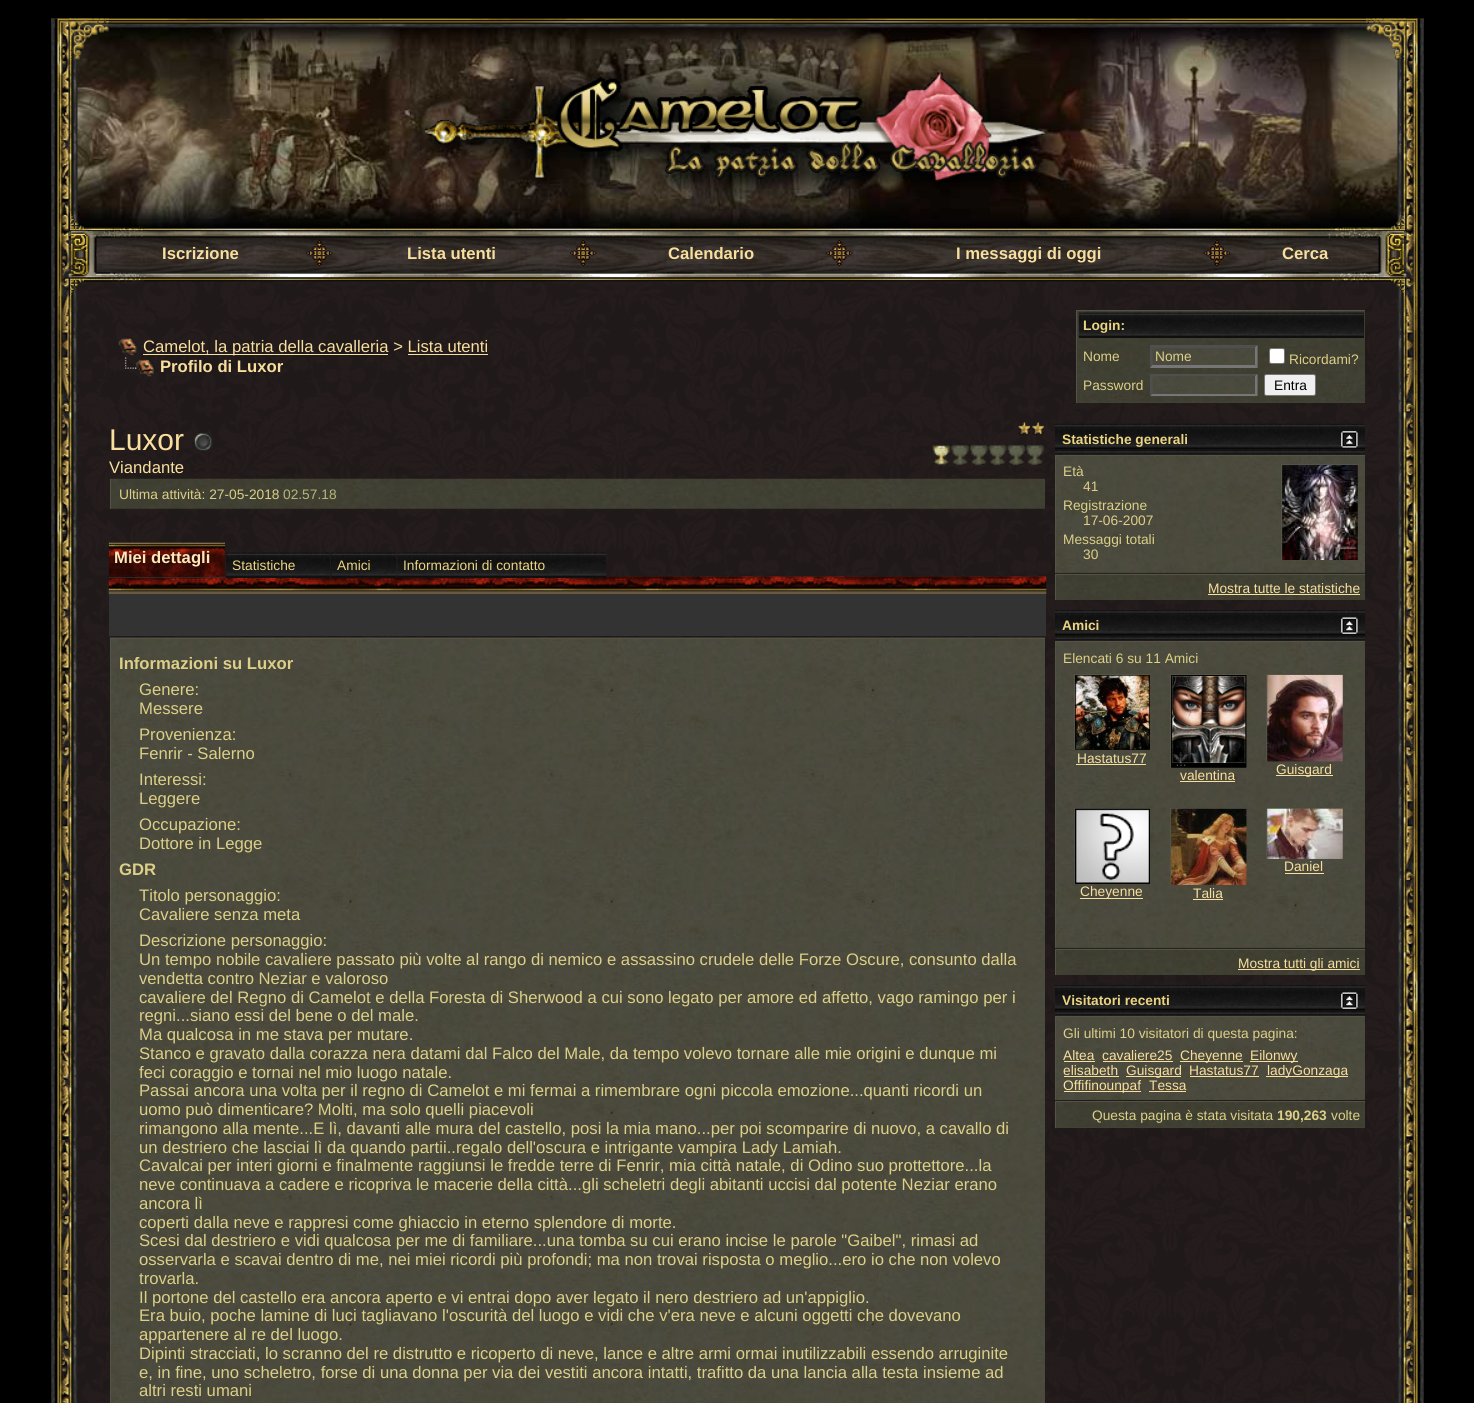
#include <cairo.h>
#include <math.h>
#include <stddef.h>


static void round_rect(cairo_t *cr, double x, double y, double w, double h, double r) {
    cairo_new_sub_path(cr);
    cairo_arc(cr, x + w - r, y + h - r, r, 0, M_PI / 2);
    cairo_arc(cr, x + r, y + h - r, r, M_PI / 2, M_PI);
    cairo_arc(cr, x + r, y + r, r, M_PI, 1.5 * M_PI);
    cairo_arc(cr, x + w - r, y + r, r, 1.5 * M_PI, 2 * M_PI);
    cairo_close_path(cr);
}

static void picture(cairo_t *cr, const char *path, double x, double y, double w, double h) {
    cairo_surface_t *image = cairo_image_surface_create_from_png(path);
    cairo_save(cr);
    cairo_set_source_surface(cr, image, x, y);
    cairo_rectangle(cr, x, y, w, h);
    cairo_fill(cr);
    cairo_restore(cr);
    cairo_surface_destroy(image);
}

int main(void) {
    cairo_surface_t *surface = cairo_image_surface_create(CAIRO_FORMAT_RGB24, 1474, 1403);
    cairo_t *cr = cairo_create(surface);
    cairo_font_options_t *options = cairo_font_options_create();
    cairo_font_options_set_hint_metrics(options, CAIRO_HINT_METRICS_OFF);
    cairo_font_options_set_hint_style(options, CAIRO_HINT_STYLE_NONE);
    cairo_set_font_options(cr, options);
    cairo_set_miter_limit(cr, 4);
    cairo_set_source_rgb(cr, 0, 0, 0);
    cairo_paint(cr);
    picture(cr, "img1.png", 51, 18, 1373, 10);
    picture(cr, "img2.png", 51, 18, 27, 1385);
    picture(cr, "img3.png", 1397, 18, 27, 1385);
    picture(cr, "img4.png", 51, 18, 58, 5);
    picture(cr, "img5.png", 1366, 18, 58, 42);
    picture(cr, "img6.png", 68, 18, 1339, 214);
    picture(cr, "img7.png", 68, 18, 1339, 10);
    picture(cr, "img8.png", 68, 227, 1339, 5);
    picture(cr, "img9.png", 68, 18, 10, 214);
    picture(cr, "img10.png", 1397, 18, 10, 214);
    picture(cr, "img11.png", 68, 212, 76, 20);
    picture(cr, "img12.png", 1331, 212, 76, 20);
    picture(cr, "img13.png", 68, 18, 41, 42);
    picture(cr, "img14.png", 1366, 18, 41, 42);
    picture(cr, "img15.png", 425, 72, 622, 110);
    picture(cr, "img16.png", 68, 231, 1339, 47);
    picture(cr, "img17.png", 68, 231, 1339, 7);
    picture(cr, "img18.png", 68, 272, 1339, 6);
    picture(cr, "img19.png", 71, 231, 26, 47);
    picture(cr, "img20.png", 1378, 231, 26, 47);
    picture(cr, "img21.png", 71, 257, 75, 21);
    picture(cr, "img22.png", 1340, 257, 64, 21);
    picture(cr, "img23.png", 71, 231, 76, 21);
    picture(cr, "img24.png", 1328, 231, 76, 21);
    cairo_select_font_face(cr, "Liberation Sans", CAIRO_FONT_SLANT_NORMAL, CAIRO_FONT_WEIGHT_BOLD);
    cairo_set_font_size(cr, 16.67);
    cairo_set_source_rgb(cr, 0.969, 0.875, 0.62);
    cairo_move_to(cr, 162, 259);
    cairo_show_text(cr, "Iscrizione");
    picture(cr, "img25.png", 306, 240, 27, 27);
    cairo_move_to(cr, 407, 259);
    cairo_show_text(cr, "Lista utenti");
    picture(cr, "img26.png", 570, 240, 27, 27);
    cairo_move_to(cr, 668, 259);
    cairo_show_text(cr, "Calendario");
    picture(cr, "img27.png", 826, 240, 27, 27);
    cairo_move_to(cr, 956, 259);
    cairo_show_text(cr, "I messaggi di oggi");
    picture(cr, "img28.png", 1203, 240, 27, 27);
    cairo_move_to(cr, 1282, 259);
    cairo_show_text(cr, "Cerca");
    picture(cr, "img29.png", 68, 277, 1339, 1126);
    picture(cr, "img30.png", 68, 277, 1339, 5);
    picture(cr, "img31.png", 68, 277, 10, 1126);
    picture(cr, "img32.png", 1397, 277, 10, 1126);
    picture(cr, "img33.png", 68, 277, 76, 20);
    picture(cr, "img34.png", 1331, 277, 76, 20);
    picture(cr, "img35.png", 118, 338, 19, 18);
    cairo_rectangle(cr, 143, 354, 245, 1);
    cairo_fill(cr);
    cairo_select_font_face(cr, "Liberation Sans", CAIRO_FONT_SLANT_NORMAL, CAIRO_FONT_WEIGHT_NORMAL);
    cairo_move_to(cr, 143, 352);
    cairo_show_text(cr, "Camelot, la patria della cavalleria > Lista utenti");
    cairo_rectangle(cr, 408, 354, 80, 1);
    cairo_fill(cr);
    picture(cr, "img36.png", 124, 357, 30, 20);
    cairo_select_font_face(cr, "Liberation Sans", CAIRO_FONT_SLANT_NORMAL, CAIRO_FONT_WEIGHT_BOLD);
    cairo_move_to(cr, 160, 372);
    cairo_show_text(cr, "Profilo di Luxor");
    cairo_set_source_rgb(cr, 0.255, 0.259, 0.204);
    cairo_rectangle(cr, 1077, 402, 288, 1);
    cairo_fill(cr);
    picture(cr, "img37.png", 1077, 311, 288, 91);
    cairo_set_source_rgb(cr, 0.325, 0.329, 0.275);
    cairo_rectangle(cr, 1076, 310, 289, 1);
    cairo_fill(cr);
    cairo_rectangle(cr, 1076, 310, 1, 93);
    cairo_fill(cr);
    cairo_set_source_rgb(cr, 0.067, 0.067, 0.067);
    cairo_rectangle(cr, 1079, 313, 285, 25);
    cairo_fill(cr);
    picture(cr, "img38.png", 1078, 312, 286, 26);
    cairo_set_font_size(cr, 13.75);
    cairo_set_source_rgb(cr, 0.918, 0.831, 0.51);
    cairo_move_to(cr, 1083, 330);
    cairo_show_text(cr, "Login:");
    cairo_select_font_face(cr, "Liberation Sans", CAIRO_FONT_SLANT_NORMAL, CAIRO_FONT_WEIGHT_NORMAL);
    cairo_set_source_rgb(cr, 0.863, 0.812, 0.529);
    cairo_move_to(cr, 1083, 361);
    cairo_show_text(cr, "Nome");
    cairo_set_source_rgb(cr, 0.255, 0.259, 0.204);
    cairo_rectangle(cr, 1150, 345, 108, 23);
    cairo_fill(cr);
    picture(cr, "img39.png", 1150, 345, 108, 23);
    cairo_set_source_rgb(cr, 0.31, 0.31, 0.31);
    cairo_new_path(cr);
    cairo_move_to(cr, 1150, 345);
    cairo_line_to(cr, 1258, 345);
    cairo_line_to(cr, 1255, 348);
    cairo_line_to(cr, 1152, 348);
    cairo_close_path(cr);
    cairo_fill(cr);
    cairo_set_source_rgb(cr, 0.463, 0.463, 0.463);
    cairo_new_path(cr);
    cairo_move_to(cr, 1257.5, 345);
    cairo_line_to(cr, 1257.5, 367.5);
    cairo_line_to(cr, 1255, 365);
    cairo_line_to(cr, 1255, 347.5);
    cairo_close_path(cr);
    cairo_fill(cr);
    cairo_new_path(cr);
    cairo_move_to(cr, 1258, 368);
    cairo_line_to(cr, 1150, 368);
    cairo_line_to(cr, 1152, 365);
    cairo_line_to(cr, 1255, 365);
    cairo_close_path(cr);
    cairo_fill(cr);
    cairo_set_source_rgb(cr, 0.31, 0.31, 0.31);
    cairo_new_path(cr);
    cairo_move_to(cr, 1150, 367.5);
    cairo_line_to(cr, 1150, 345);
    cairo_line_to(cr, 1152.5, 347.5);
    cairo_line_to(cr, 1152.5, 365);
    cairo_close_path(cr);
    cairo_fill(cr);
    cairo_set_source_rgb(cr, 0.863, 0.812, 0.529);
    cairo_move_to(cr, 1155, 361);
    cairo_show_text(cr, "Nome");
    cairo_set_source_rgb(cr, 1, 1, 1);
    round_rect(cr, 1269.5, 348.5, 15, 15, 2);
    cairo_fill_preserve(cr);
    cairo_set_source_rgb(cr, 0.463, 0.463, 0.463);
    cairo_set_line_width(cr, 1);
    cairo_stroke(cr);
    cairo_set_source_rgb(cr, 0.863, 0.812, 0.529);
    cairo_move_to(cr, 1289, 364);
    cairo_show_text(cr, "Ricordami?");
    cairo_move_to(cr, 1083, 390);
    cairo_show_text(cr, "Password");
    picture(cr, "img40.png", 1150, 374, 108, 23);
    cairo_set_source_rgb(cr, 0.31, 0.31, 0.31);
    cairo_new_path(cr);
    cairo_move_to(cr, 1150, 374);
    cairo_line_to(cr, 1258, 374);
    cairo_line_to(cr, 1255, 376);
    cairo_line_to(cr, 1152, 376);
    cairo_close_path(cr);
    cairo_fill(cr);
    cairo_set_source_rgb(cr, 0.463, 0.463, 0.463);
    cairo_new_path(cr);
    cairo_move_to(cr, 1257.5, 374);
    cairo_line_to(cr, 1257.5, 396);
    cairo_line_to(cr, 1255, 394);
    cairo_line_to(cr, 1255, 376);
    cairo_close_path(cr);
    cairo_fill(cr);
    cairo_new_path(cr);
    cairo_move_to(cr, 1258, 396);
    cairo_line_to(cr, 1150, 396);
    cairo_line_to(cr, 1152, 394);
    cairo_line_to(cr, 1255, 394);
    cairo_close_path(cr);
    cairo_fill(cr);
    cairo_set_source_rgb(cr, 0.31, 0.31, 0.31);
    cairo_new_path(cr);
    cairo_move_to(cr, 1150, 396);
    cairo_line_to(cr, 1150, 374);
    cairo_line_to(cr, 1152.5, 376);
    cairo_line_to(cr, 1152.5, 394);
    cairo_close_path(cr);
    cairo_fill(cr);
    cairo_set_source_rgb(cr, 0.937, 0.937, 0.937);
    round_rect(cr, 1264.5, 374.5, 51, 21, 2);
    cairo_fill_preserve(cr);
    cairo_set_source_rgb(cr, 0.463, 0.463, 0.463);
    cairo_stroke(cr);
    cairo_set_source_rgb(cr, 0, 0, 0);
    cairo_move_to(cr, 1274, 390);
    cairo_show_text(cr, "Entra");
    cairo_set_font_size(cr, 30);
    cairo_set_source_rgb(cr, 0.969, 0.875, 0.62);
    cairo_move_to(cr, 109, 450);
    cairo_show_text(cr, "Luxor");
    picture(cr, "img41.png", 194, 432, 19, 20);
    picture(cr, "img42.png", 1018, 422, 12, 13);
    picture(cr, "img43.png", 1032, 422, 12, 13);
    picture(cr, "img44.png", 932, 445, 112, 21);
    cairo_set_font_size(cr, 16.67);
    cairo_move_to(cr, 109, 473);
    cairo_show_text(cr, "Viandante");
    picture(cr, "img45.png", 110, 478, 935, 31);
    cairo_set_source_rgb(cr, 0.325, 0.329, 0.275);
    cairo_rectangle(cr, 110, 479, 1, 30);
    cairo_fill(cr);
    cairo_set_font_size(cr, 13.75);
    cairo_set_source_rgb(cr, 0.863, 0.812, 0.529);
    cairo_move_to(cr, 119, 499);
    cairo_show_text(cr, "Ultima attività: 27-05-2018");
    cairo_set_source_rgb(cr, 0.714, 0.714, 0.478);
    cairo_move_to(cr, 283, 499);
    cairo_show_text(cr, "02.57.18");
    cairo_set_source_rgb(cr, 0.2, 0.2, 0.2);
    cairo_rectangle(cr, 109, 576, 937, 60);
    cairo_fill(cr);
    picture(cr, "img50.png", 108, 576, 939, 18);
    cairo_rectangle(cr, 109, 577, 116, 1);
    cairo_fill(cr);
    picture(cr, "img46.png", 108, 542, 117, 36);
    cairo_select_font_face(cr, "Liberation Sans", CAIRO_FONT_SLANT_NORMAL, CAIRO_FONT_WEIGHT_BOLD);
    cairo_set_font_size(cr, 16.67);
    cairo_set_source_rgb(cr, 1, 0.914, 0.725);
    cairo_move_to(cr, 114, 563);
    cairo_show_text(cr, "Miei dettagli");
    cairo_set_source_rgb(cr, 0.067, 0.067, 0.067);
    cairo_rectangle(cr, 226, 553, 104, 25);
    cairo_fill(cr);
    picture(cr, "img47.png", 226, 552, 104, 24);
    cairo_select_font_face(cr, "Liberation Sans", CAIRO_FONT_SLANT_NORMAL, CAIRO_FONT_WEIGHT_NORMAL);
    cairo_set_font_size(cr, 13.75);
    cairo_set_source_rgb(cr, 0.918, 0.831, 0.51);
    cairo_move_to(cr, 232, 570);
    cairo_show_text(cr, "Statistiche");
    cairo_set_source_rgb(cr, 0.067, 0.067, 0.067);
    cairo_rectangle(cr, 331, 553, 65, 25);
    cairo_fill(cr);
    picture(cr, "img48.png", 331, 552, 66, 25);
    cairo_set_source_rgb(cr, 0.918, 0.831, 0.51);
    cairo_move_to(cr, 337, 570);
    cairo_show_text(cr, "Amici");
    cairo_set_source_rgb(cr, 0.067, 0.067, 0.067);
    cairo_rectangle(cr, 398, 577, 208, 1);
    cairo_fill(cr);
    picture(cr, "img49.png", 397, 552, 210, 25);
    cairo_set_source_rgb(cr, 0.918, 0.831, 0.51);
    cairo_move_to(cr, 403, 570);
    cairo_show_text(cr, "Informazioni di contatto");
    picture(cr, "img51.png", 110, 637, 935, 766);
    cairo_set_source_rgb(cr, 0.325, 0.329, 0.275);
    cairo_rectangle(cr, 110, 638, 935, 1);
    cairo_fill(cr);
    cairo_rectangle(cr, 110, 638, 1, 765);
    cairo_fill(cr);
    cairo_select_font_face(cr, "Liberation Sans", CAIRO_FONT_SLANT_NORMAL, CAIRO_FONT_WEIGHT_BOLD);
    cairo_set_font_size(cr, 16.67);
    cairo_set_source_rgb(cr, 0.863, 0.812, 0.529);
    cairo_move_to(cr, 119, 669);
    cairo_show_text(cr, "Informazioni su Luxor");
    cairo_select_font_face(cr, "Liberation Sans", CAIRO_FONT_SLANT_NORMAL, CAIRO_FONT_WEIGHT_NORMAL);
    cairo_move_to(cr, 139, 695);
    cairo_show_text(cr, "Genere:");
    cairo_move_to(cr, 139, 714);
    cairo_show_text(cr, "Messere");
    cairo_move_to(cr, 139, 740);
    cairo_show_text(cr, "Provenienza:");
    cairo_move_to(cr, 139, 759);
    cairo_show_text(cr, "Fenrir - Salerno");
    cairo_move_to(cr, 139, 785);
    cairo_show_text(cr, "Interessi:");
    cairo_move_to(cr, 139, 804);
    cairo_show_text(cr, "Leggere");
    cairo_move_to(cr, 139, 830);
    cairo_show_text(cr, "Occupazione:");
    cairo_move_to(cr, 139, 849);
    cairo_show_text(cr, "Dottore in Legge");
    cairo_select_font_face(cr, "Liberation Sans", CAIRO_FONT_SLANT_NORMAL, CAIRO_FONT_WEIGHT_BOLD);
    cairo_move_to(cr, 119, 875);
    cairo_show_text(cr, "GDR");
    cairo_select_font_face(cr, "Liberation Sans", CAIRO_FONT_SLANT_NORMAL, CAIRO_FONT_WEIGHT_NORMAL);
    cairo_move_to(cr, 139, 901);
    cairo_show_text(cr, "Titolo personaggio:");
    cairo_move_to(cr, 139, 920);
    cairo_show_text(cr, "Cavaliere senza meta");
    cairo_move_to(cr, 139, 946);
    cairo_show_text(cr, "Descrizione personaggio:");
    cairo_move_to(cr, 139, 965);
    cairo_show_text(cr, "Un tempo nobile cavaliere passato più volte al rango di nemico e assassino crudele delle Forze Oscure, consunto dalla");
    cairo_move_to(cr, 139, 984);
    cairo_show_text(cr, "vendetta contro Neziar e valoroso");
    cairo_move_to(cr, 139, 1003);
    cairo_show_text(cr, "cavaliere del Regno di Camelot e della Foresta di Sherwood a cui sono legato per amore ed affetto, vago ramingo per i");
    cairo_move_to(cr, 139, 1021);
    cairo_show_text(cr, "regni...siano essi del bene o del male.");
    cairo_move_to(cr, 139, 1040);
    cairo_show_text(cr, "Ma qualcosa in me stava per mutare.");
    cairo_move_to(cr, 139, 1059);
    cairo_show_text(cr, "Stanco e gravato dalla corazza nera datami dal Falco del Male, da tempo volevo tornare alle mie origini e dunque mi");
    cairo_move_to(cr, 139, 1078);
    cairo_show_text(cr, "feci coraggio e tornai nel mio luogo natale.");
    cairo_move_to(cr, 139, 1096);
    cairo_show_text(cr, "Passai ancora una volta per il regno di Camelot e mi fermai a rimembrare ogni piccola emozione...quanti ricordi un");
    cairo_move_to(cr, 139, 1115);
    cairo_show_text(cr, "uomo può dimenticare? Molti, ma solo quelli piacevoli");
    cairo_move_to(cr, 139, 1134);
    cairo_show_text(cr, "rimangono alla mente...E lì, davanti alle mura del castello, posi la mia mano...per poi scomparire di nuovo, a cavallo di");
    cairo_move_to(cr, 139, 1153);
    cairo_show_text(cr, "un destriero che lasciai lì da quando partii..regalo dell'oscura e intrigante vampira Lady Lamiah.");
    cairo_move_to(cr, 139, 1171);
    cairo_show_text(cr, "Cavalcai per interi giorni e finalmente raggiunsi le fredde terre di Fenrir, mia città natale, di Odino suo prottettore...la");
    cairo_move_to(cr, 139, 1190);
    cairo_show_text(cr, "neve continuava a cadere e ricopriva le macerie della città...gli scheletri degli abitanti uccisi dal potente Neziar erano");
    cairo_move_to(cr, 139, 1209);
    cairo_show_text(cr, "ancora lì");
    cairo_move_to(cr, 139, 1228);
    cairo_show_text(cr, "coperti dalla neve e rappresi come ghiaccio in eterno splendore di morte.");
    cairo_move_to(cr, 139, 1246);
    cairo_show_text(cr, "Scesi dal destriero e vidi qualcosa per me di familiare...una tomba su cui erano incise le parole \"Gaibel\", rimasi ad");
    cairo_move_to(cr, 139, 1265);
    cairo_show_text(cr, "osservarla e scavai dentro di me, nei miei ricordi più profondi; ma non trovai risposta o meglio...ero io che non volevo");
    cairo_move_to(cr, 139, 1284);
    cairo_show_text(cr, "trovarla.");
    cairo_move_to(cr, 139, 1303);
    cairo_show_text(cr, "Il portone del castello era ancora aperto e vi entrai dopo aver legato il nero destriero ad un'appiglio.");
    cairo_move_to(cr, 139, 1321);
    cairo_show_text(cr, "Era buio, poche lamine di luci tagliavano l'oscurità del luogo e vidi che v'era neve e alcuni oggetti che dovevano");
    cairo_move_to(cr, 139, 1340);
    cairo_show_text(cr, "appartenere al re del luogo.");
    cairo_move_to(cr, 139, 1359);
    cairo_show_text(cr, "Dipinti stracciati, lo scranno del re distrutto e ricoperto di neve, lance e altre armi ormai inutilizzabili essendo arruginite");
    cairo_move_to(cr, 139, 1378);
    cairo_show_text(cr, "e, in fine, uno scheletro, forse di una donna per via dei vestiti ancora intatti, trafitto da una lancia alla testa insieme ad");
    cairo_move_to(cr, 139, 1396);
    cairo_show_text(cr, "altri resti umani");
    picture(cr, "img52.png", 1055, 423, 310, 31);
    cairo_select_font_face(cr, "Liberation Sans", CAIRO_FONT_SLANT_NORMAL, CAIRO_FONT_WEIGHT_BOLD);
    cairo_set_font_size(cr, 13.75);
    cairo_set_source_rgb(cr, 0.918, 0.831, 0.51);
    cairo_move_to(cr, 1062, 444);
    cairo_show_text(cr, "Statistiche generali");
    picture(cr, "img53.png", 1341, 431, 17, 17);
    cairo_set_source_rgb(cr, 0.255, 0.259, 0.204);
    cairo_rectangle(cr, 1056, 572, 309, 1);
    cairo_fill(cr);
    picture(cr, "img54.png", 1056, 456, 309, 117);
    cairo_set_source_rgb(cr, 0.325, 0.329, 0.275);
    cairo_rectangle(cr, 1055, 455, 310, 1);
    cairo_fill(cr);
    cairo_rectangle(cr, 1055, 455, 1, 118);
    cairo_fill(cr);
    cairo_select_font_face(cr, "Liberation Sans", CAIRO_FONT_SLANT_NORMAL, CAIRO_FONT_WEIGHT_NORMAL);
    cairo_set_source_rgb(cr, 0.863, 0.812, 0.529);
    cairo_move_to(cr, 1063, 476);
    cairo_show_text(cr, "Età");
    cairo_move_to(cr, 1083, 491);
    cairo_show_text(cr, "41");
    cairo_move_to(cr, 1063, 510);
    cairo_show_text(cr, "Registrazione");
    cairo_move_to(cr, 1083, 525);
    cairo_show_text(cr, "17-06-2007");
    cairo_move_to(cr, 1063, 544);
    cairo_show_text(cr, "Messaggi totali");
    cairo_move_to(cr, 1083, 559);
    cairo_show_text(cr, "30");
    cairo_set_source_rgb(cr, 0.325, 0.329, 0.275);
    cairo_rectangle(cr, 1281, 464, 77, 1);
    cairo_fill(cr);
    cairo_rectangle(cr, 1281, 464, 1, 96);
    cairo_fill(cr);
    picture(cr, "img55.png", 1282, 465, 76, 95);
    picture(cr, "img56.png", 1282, 465, 76, 95);
    picture(cr, "img57.png", 1055, 573, 310, 27);
    cairo_rectangle(cr, 1055, 574, 310, 1);
    cairo_fill(cr);
    cairo_rectangle(cr, 1055, 574, 1, 26);
    cairo_fill(cr);
    cairo_set_source_rgb(cr, 0.969, 0.875, 0.62);
    cairo_move_to(cr, 1208, 593);
    cairo_show_text(cr, "Mostra tutte le statistiche");
    cairo_rectangle(cr, 1208, 594, 152, 1);
    cairo_fill(cr);
    picture(cr, "img58.png", 1055, 610, 310, 30);
    cairo_select_font_face(cr, "Liberation Sans", CAIRO_FONT_SLANT_NORMAL, CAIRO_FONT_WEIGHT_BOLD);
    cairo_set_source_rgb(cr, 0.918, 0.831, 0.51);
    cairo_move_to(cr, 1062, 630);
    cairo_show_text(cr, "Amici");
    picture(cr, "img59.png", 1341, 617, 17, 17);
    cairo_set_source_rgb(cr, 0.255, 0.259, 0.204);
    cairo_rectangle(cr, 1056, 947, 309, 1);
    cairo_fill(cr);
    picture(cr, "img60.png", 1056, 642, 309, 306);
    cairo_set_source_rgb(cr, 0.325, 0.329, 0.275);
    cairo_rectangle(cr, 1055, 641, 310, 1);
    cairo_fill(cr);
    cairo_rectangle(cr, 1055, 641, 1, 307);
    cairo_fill(cr);
    cairo_select_font_face(cr, "Liberation Sans", CAIRO_FONT_SLANT_NORMAL, CAIRO_FONT_WEIGHT_NORMAL);
    cairo_set_source_rgb(cr, 0.863, 0.812, 0.529);
    cairo_move_to(cr, 1063, 663);
    cairo_show_text(cr, "Elencati 6 su 11 Amici");
    cairo_set_source_rgb(cr, 0.325, 0.329, 0.275);
    cairo_rectangle(cr, 1074, 674, 76, 1);
    cairo_fill(cr);
    cairo_rectangle(cr, 1074, 674, 1, 76);
    cairo_fill(cr);
    picture(cr, "img61.png", 1075, 675, 75, 75);
    cairo_set_source_rgb(cr, 0.969, 0.875, 0.62);
    cairo_move_to(cr, 1077, 763);
    cairo_show_text(cr, "Hastatus77");
    cairo_rectangle(cr, 1076, 764, 70, 1);
    cairo_fill(cr);
    picture(cr, "img62.png", 1171, 674, 76, 94);
    cairo_set_source_rgb(cr, 0.325, 0.329, 0.275);
    cairo_rectangle(cr, 1170, 674, 76, 1);
    cairo_fill(cr);
    cairo_rectangle(cr, 1170, 674, 1, 94);
    cairo_fill(cr);
    picture(cr, "img63.png", 1171, 675, 76, 93);
    cairo_set_source_rgb(cr, 0.969, 0.875, 0.62);
    cairo_move_to(cr, 1180, 780);
    cairo_show_text(cr, "valentina");
    cairo_rectangle(cr, 1180, 781, 55, 1);
    cairo_fill(cr);
    cairo_set_source_rgb(cr, 0.325, 0.329, 0.275);
    cairo_rectangle(cr, 1266, 674, 77, 1);
    cairo_fill(cr);
    picture(cr, "img64.png", 1266, 675, 77, 87);
    cairo_rectangle(cr, 1266, 674, 1, 87);
    cairo_fill(cr);
    picture(cr, "img65.png", 1267, 675, 76, 87);
    cairo_set_source_rgb(cr, 0.969, 0.875, 0.62);
    cairo_rectangle(cr, 1276, 775, 57, 1);
    cairo_fill(cr);
    cairo_move_to(cr, 1276, 774);
    cairo_show_text(cr, "Guisgard");
    cairo_set_source_rgb(cr, 0.325, 0.329, 0.275);
    cairo_rectangle(cr, 1266, 808, 77, 1);
    cairo_fill(cr);
    cairo_rectangle(cr, 1266, 808, 1, 51);
    cairo_fill(cr);
    cairo_set_source_rgb(cr, 0.255, 0.259, 0.204);
    cairo_rectangle(cr, 1268, 809, 75, 50);
    cairo_fill(cr);
    picture(cr, "img67.png", 1267, 809, 76, 50);
    picture(cr, "img66.png", 1267, 808, 76, 51);
    cairo_set_source_rgb(cr, 0.969, 0.875, 0.62);
    cairo_move_to(cr, 1284, 871);
    cairo_show_text(cr, "Daniel");
    cairo_rectangle(cr, 1285, 873, 39, 1);
    cairo_fill(cr);
    cairo_set_source_rgb(cr, 0.325, 0.329, 0.275);
    cairo_rectangle(cr, 1074, 808, 76, 1);
    cairo_fill(cr);
    cairo_rectangle(cr, 1074, 808, 1, 76);
    cairo_fill(cr);
    picture(cr, "img69.png", 1075, 883, 75, 1);
    picture(cr, "img68.png", 1075, 808, 75, 76);
    cairo_set_source_rgb(cr, 0.969, 0.875, 0.62);
    cairo_rectangle(cr, 1080, 898, 63, 1);
    cairo_fill(cr);
    cairo_move_to(cr, 1080, 896);
    cairo_show_text(cr, "Cheyenne");
    picture(cr, "img70.png", 1171, 808, 76, 77);
    cairo_set_source_rgb(cr, 0.325, 0.329, 0.275);
    cairo_rectangle(cr, 1170, 808, 76, 1);
    cairo_fill(cr);
    cairo_rectangle(cr, 1170, 808, 1, 77);
    cairo_fill(cr);
    picture(cr, "img71.png", 1171, 808, 76, 77);
    cairo_set_source_rgb(cr, 0.969, 0.875, 0.62);
    cairo_move_to(cr, 1193, 898);
    cairo_show_text(cr, "Talia");
    cairo_rectangle(cr, 1193, 899, 30, 1);
    cairo_fill(cr);
    picture(cr, "img72.png", 1055, 948, 310, 27);
    cairo_set_source_rgb(cr, 0.325, 0.329, 0.275);
    cairo_rectangle(cr, 1055, 949, 310, 1);
    cairo_fill(cr);
    cairo_rectangle(cr, 1055, 949, 1, 26);
    cairo_fill(cr);
    cairo_set_source_rgb(cr, 0.969, 0.875, 0.62);
    cairo_rectangle(cr, 1238, 969, 122, 1);
    cairo_fill(cr);
    cairo_move_to(cr, 1238, 968);
    cairo_show_text(cr, "Mostra tutti gli amici");
    picture(cr, "img58.png", 1055, 985, 310, 30);
    cairo_select_font_face(cr, "Liberation Sans", CAIRO_FONT_SLANT_NORMAL, CAIRO_FONT_WEIGHT_BOLD);
    cairo_set_source_rgb(cr, 0.918, 0.831, 0.51);
    cairo_move_to(cr, 1062, 1005);
    cairo_show_text(cr, "Visitatori recenti");
    picture(cr, "img59.png", 1341, 992, 17, 17);
    picture(cr, "img73.png", 1056, 1017, 309, 83);
    cairo_set_source_rgb(cr, 0.325, 0.329, 0.275);
    cairo_rectangle(cr, 1055, 1016, 310, 1);
    cairo_fill(cr);
    cairo_rectangle(cr, 1055, 1016, 1, 84);
    cairo_fill(cr);
    cairo_select_font_face(cr, "Liberation Sans", CAIRO_FONT_SLANT_NORMAL, CAIRO_FONT_WEIGHT_NORMAL);
    cairo_set_source_rgb(cr, 0.863, 0.812, 0.529);
    cairo_move_to(cr, 1063, 1038);
    cairo_show_text(cr, "Gli ultimi 10 visitatori di questa pagina:");
    cairo_set_source_rgb(cr, 0.969, 0.875, 0.62);
    cairo_move_to(cr, 1063, 1060);
    cairo_show_text(cr, "Altea");
    cairo_rectangle(cr, 1064, 1061, 31, 1);
    cairo_fill(cr);
    cairo_move_to(cr, 1102, 1060);
    cairo_show_text(cr, "cavaliere25");
    cairo_rectangle(cr, 1103, 1061, 70, 1);
    cairo_fill(cr);
    cairo_rectangle(cr, 1180, 1061, 63, 1);
    cairo_fill(cr);
    cairo_move_to(cr, 1180, 1060);
    cairo_show_text(cr, "Cheyenne");
    cairo_rectangle(cr, 1250, 1061, 48, 1);
    cairo_fill(cr);
    cairo_move_to(cr, 1250, 1060);
    cairo_show_text(cr, "Eilonwy");
    cairo_move_to(cr, 1063, 1075);
    cairo_show_text(cr, "elisabeth");
    cairo_rectangle(cr, 1064, 1076, 55, 1);
    cairo_fill(cr);
    cairo_rectangle(cr, 1126, 1076, 55, 1);
    cairo_fill(cr);
    cairo_move_to(cr, 1126, 1075);
    cairo_show_text(cr, "Guisgard");
    cairo_move_to(cr, 1189, 1075);
    cairo_show_text(cr, "Hastatus77");
    cairo_rectangle(cr, 1190, 1076, 69, 1);
    cairo_fill(cr);
    cairo_rectangle(cr, 1266, 1076, 82, 1);
    cairo_fill(cr);
    cairo_move_to(cr, 1267, 1075);
    cairo_show_text(cr, "ladyGonzaga");
    cairo_rectangle(cr, 1064, 1091, 77, 1);
    cairo_fill(cr);
    cairo_move_to(cr, 1063, 1090);
    cairo_show_text(cr, "Offifinounpaf");
    cairo_move_to(cr, 1149, 1090);
    cairo_show_text(cr, "Tessa");
    cairo_rectangle(cr, 1149, 1091, 37, 1);
    cairo_fill(cr);
    cairo_set_source_rgb(cr, 0.255, 0.259, 0.204);
    cairo_rectangle(cr, 1056, 1102, 309, 26);
    cairo_fill(cr);
    picture(cr, "img74.png", 1056, 1102, 308, 25);
    cairo_set_source_rgb(cr, 0.325, 0.329, 0.275);
    cairo_rectangle(cr, 1055, 1101, 310, 1);
    cairo_fill(cr);
    cairo_rectangle(cr, 1055, 1101, 1, 27);
    cairo_fill(cr);
    cairo_set_source_rgb(cr, 0.863, 0.812, 0.529);
    cairo_move_to(cr, 1092, 1120);
    cairo_show_text(cr, "Questa pagina è stata visitata");
    cairo_select_font_face(cr, "Liberation Sans", CAIRO_FONT_SLANT_NORMAL, CAIRO_FONT_WEIGHT_BOLD);
    cairo_move_to(cr, 1277, 1120);
    cairo_show_text(cr, "190,263");
    cairo_select_font_face(cr, "Liberation Sans", CAIRO_FONT_SLANT_NORMAL, CAIRO_FONT_WEIGHT_NORMAL);
    cairo_move_to(cr, 1331, 1120);
    cairo_show_text(cr, "volte");
    cairo_surface_write_to_png(surface, "page.png");
    cairo_font_options_destroy(options);
    cairo_destroy(cr);
    cairo_surface_destroy(surface);
    return 0;
}
